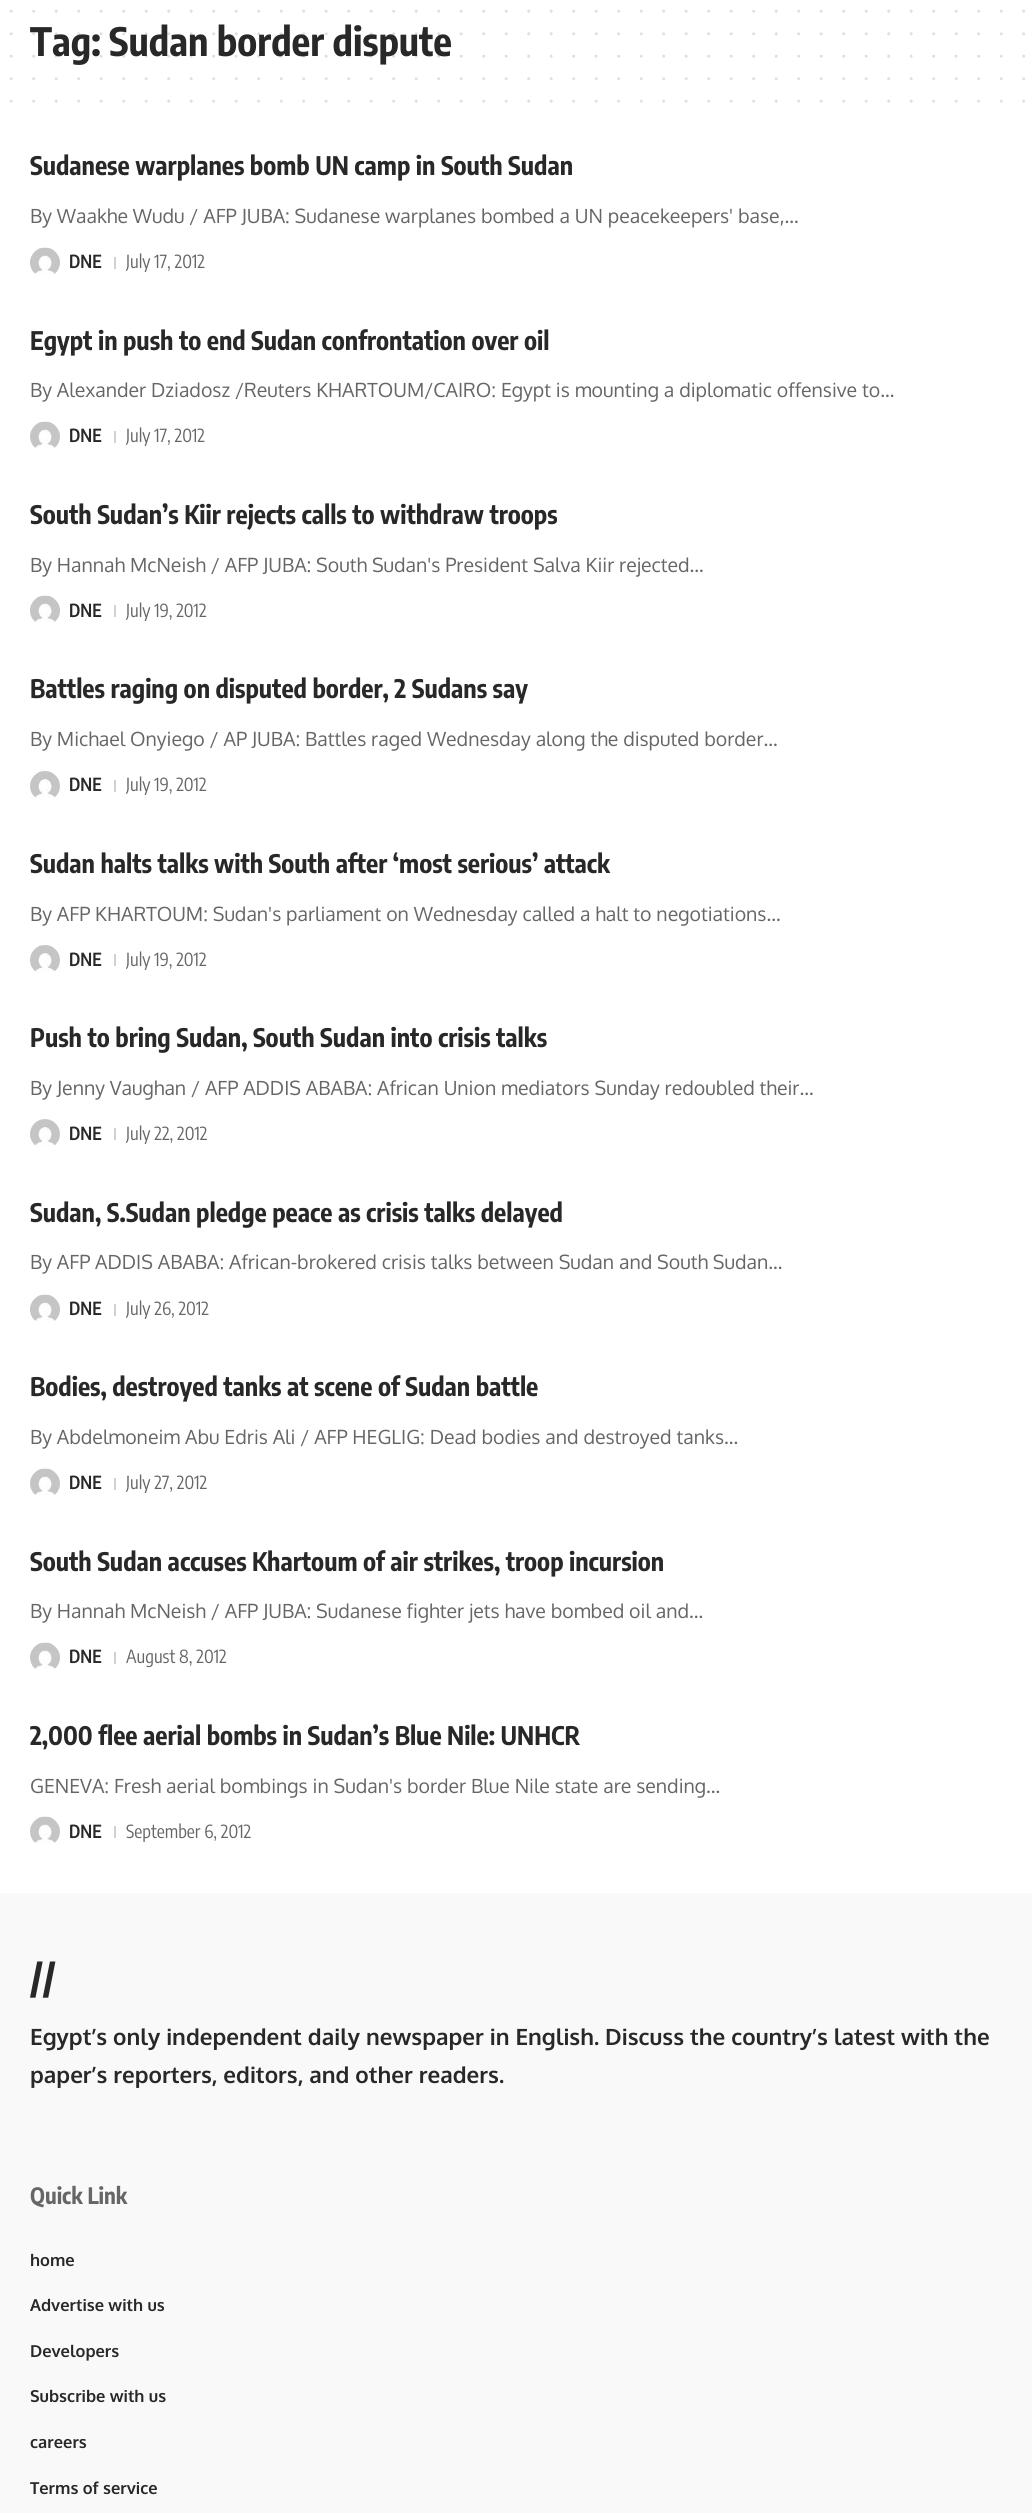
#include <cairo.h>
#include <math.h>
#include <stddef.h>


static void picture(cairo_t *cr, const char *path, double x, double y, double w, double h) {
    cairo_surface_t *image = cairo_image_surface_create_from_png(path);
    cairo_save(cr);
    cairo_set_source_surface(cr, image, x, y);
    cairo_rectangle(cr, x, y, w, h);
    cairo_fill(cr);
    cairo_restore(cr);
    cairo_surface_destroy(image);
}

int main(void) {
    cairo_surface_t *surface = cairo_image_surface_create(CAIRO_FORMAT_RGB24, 1032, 2513);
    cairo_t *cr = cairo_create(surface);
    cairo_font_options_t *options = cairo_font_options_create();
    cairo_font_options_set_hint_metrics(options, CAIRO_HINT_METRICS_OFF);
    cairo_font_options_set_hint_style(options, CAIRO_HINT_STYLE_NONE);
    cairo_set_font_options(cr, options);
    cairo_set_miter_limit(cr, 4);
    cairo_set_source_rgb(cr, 1, 1, 1);
    cairo_paint(cr);
    cairo_new_path(cr);
    cairo_move_to(cr, 11.2, 11.2);
    cairo_line_to(cr, 1024.1, 11.2);
    cairo_set_source_rgb(cr, 0.875, 0.875, 0.875);
    cairo_set_line_width(cr, 3);
    cairo_set_line_cap(cr, CAIRO_LINE_CAP_ROUND);
    cairo_set_dash(cr, (double[]){0, 22.5}, 2, 0);
    cairo_stroke(cr);
    cairo_select_font_face(cr, "Encode Sans Condensed", CAIRO_FONT_SLANT_NORMAL, CAIRO_FONT_WEIGHT_BOLD);
    cairo_set_font_size(cr, 39);
    cairo_set_source_rgb(cr, 0.157, 0.157, 0.157);
    cairo_move_to(cr, 30, 56);
    cairo_show_text(cr, "Tag: Sudan border dispute");
    cairo_new_path(cr);
    cairo_move_to(cr, 11.2, 33.8);
    cairo_line_to(cr, 1024.1, 33.8);
    cairo_set_source_rgba(cr, 0.157, 0.157, 0.157, 0.15);
    cairo_stroke(cr);
    cairo_new_path(cr);
    cairo_move_to(cr, 11.2, 56.2);
    cairo_line_to(cr, 1024.1, 56.2);
    cairo_stroke(cr);
    cairo_new_path(cr);
    cairo_move_to(cr, 11.2, 78.8);
    cairo_line_to(cr, 1024.1, 78.8);
    cairo_set_source_rgb(cr, 0.875, 0.875, 0.875);
    cairo_stroke(cr);
    cairo_new_path(cr);
    cairo_move_to(cr, 11.2, 101.2);
    cairo_line_to(cr, 1024.1, 101.2);
    cairo_stroke(cr);
    cairo_set_font_size(cr, 25.5);
    cairo_set_source_rgb(cr, 0.157, 0.157, 0.157);
    cairo_move_to(cr, 30, 175);
    cairo_show_text(cr, "Sudanese warplanes bomb UN camp in South Sudan");
    cairo_select_font_face(cr, "Oxygen", CAIRO_FONT_SLANT_NORMAL, CAIRO_FONT_WEIGHT_NORMAL);
    cairo_set_font_size(cr, 19.5);
    cairo_set_source_rgb(cr, 0.4, 0.4, 0.4);
    cairo_move_to(cr, 30, 223);
    cairo_show_text(cr, "By Waakhe Wudu / AFP JUBA: Sudanese warplanes bombed a UN peacekeepers' base,…");
    picture(cr, "img1.png", 30, 247, 30, 27);
    cairo_select_font_face(cr, "Encode Sans Condensed SemiBold", CAIRO_FONT_SLANT_NORMAL, CAIRO_FONT_WEIGHT_NORMAL);
    cairo_set_font_size(cr, 18);
    cairo_set_source_rgb(cr, 0.157, 0.157, 0.157);
    cairo_move_to(cr, 69, 268);
    cairo_show_text(cr, "DNE");
    cairo_set_source_rgb(cr, 0.82, 0.82, 0.82);
    cairo_rectangle(cr, 114, 257, 2, 12);
    cairo_fill(cr);
    cairo_select_font_face(cr, "Encode Sans Condensed", CAIRO_FONT_SLANT_NORMAL, CAIRO_FONT_WEIGHT_NORMAL);
    cairo_set_source_rgb(cr, 0.4, 0.4, 0.4);
    cairo_move_to(cr, 126, 268);
    cairo_show_text(cr, "July 17, 2012");
    cairo_select_font_face(cr, "Encode Sans Condensed", CAIRO_FONT_SLANT_NORMAL, CAIRO_FONT_WEIGHT_BOLD);
    cairo_set_font_size(cr, 25.5);
    cairo_set_source_rgb(cr, 0.157, 0.157, 0.157);
    cairo_move_to(cr, 30, 350);
    cairo_show_text(cr, "Egypt in push to end Sudan confrontation over oil");
    cairo_select_font_face(cr, "Oxygen", CAIRO_FONT_SLANT_NORMAL, CAIRO_FONT_WEIGHT_NORMAL);
    cairo_set_font_size(cr, 19.5);
    cairo_set_source_rgb(cr, 0.4, 0.4, 0.4);
    cairo_move_to(cr, 30, 397);
    cairo_show_text(cr, "By Alexander Dziadosz /Reuters KHARTOUM/CAIRO: Egypt is mounting a diplomatic offensive to…");
    picture(cr, "img1.png", 30, 421, 30, 27);
    cairo_select_font_face(cr, "Encode Sans Condensed SemiBold", CAIRO_FONT_SLANT_NORMAL, CAIRO_FONT_WEIGHT_NORMAL);
    cairo_set_font_size(cr, 18);
    cairo_set_source_rgb(cr, 0.157, 0.157, 0.157);
    cairo_move_to(cr, 69, 442);
    cairo_show_text(cr, "DNE");
    cairo_set_source_rgb(cr, 0.82, 0.82, 0.82);
    cairo_rectangle(cr, 114, 431, 2, 12);
    cairo_fill(cr);
    cairo_select_font_face(cr, "Encode Sans Condensed", CAIRO_FONT_SLANT_NORMAL, CAIRO_FONT_WEIGHT_NORMAL);
    cairo_set_source_rgb(cr, 0.4, 0.4, 0.4);
    cairo_move_to(cr, 126, 442);
    cairo_show_text(cr, "July 17, 2012");
    cairo_select_font_face(cr, "Encode Sans Condensed", CAIRO_FONT_SLANT_NORMAL, CAIRO_FONT_WEIGHT_BOLD);
    cairo_set_font_size(cr, 25.5);
    cairo_set_source_rgb(cr, 0.157, 0.157, 0.157);
    cairo_move_to(cr, 30, 524);
    cairo_show_text(cr, "South Sudan’s Kiir rejects calls to withdraw troops");
    cairo_select_font_face(cr, "Oxygen", CAIRO_FONT_SLANT_NORMAL, CAIRO_FONT_WEIGHT_NORMAL);
    cairo_set_font_size(cr, 19.5);
    cairo_set_source_rgb(cr, 0.4, 0.4, 0.4);
    cairo_move_to(cr, 30, 572);
    cairo_show_text(cr, "By Hannah McNeish / AFP JUBA: South Sudan's President Salva Kiir rejected…");
    picture(cr, "img2.png", 30, 595, 30, 27);
    cairo_select_font_face(cr, "Encode Sans Condensed SemiBold", CAIRO_FONT_SLANT_NORMAL, CAIRO_FONT_WEIGHT_NORMAL);
    cairo_set_font_size(cr, 18);
    cairo_set_source_rgb(cr, 0.157, 0.157, 0.157);
    cairo_move_to(cr, 69, 617);
    cairo_show_text(cr, "DNE");
    cairo_set_source_rgb(cr, 0.82, 0.82, 0.82);
    cairo_rectangle(cr, 114, 605, 2, 12);
    cairo_fill(cr);
    cairo_select_font_face(cr, "Encode Sans Condensed", CAIRO_FONT_SLANT_NORMAL, CAIRO_FONT_WEIGHT_NORMAL);
    cairo_set_source_rgb(cr, 0.4, 0.4, 0.4);
    cairo_move_to(cr, 126, 617);
    cairo_show_text(cr, "July 19, 2012");
    cairo_select_font_face(cr, "Encode Sans Condensed", CAIRO_FONT_SLANT_NORMAL, CAIRO_FONT_WEIGHT_BOLD);
    cairo_set_font_size(cr, 25.5);
    cairo_set_source_rgb(cr, 0.157, 0.157, 0.157);
    cairo_move_to(cr, 30, 698);
    cairo_show_text(cr, "Battles raging on disputed border, 2 Sudans say");
    cairo_select_font_face(cr, "Oxygen", CAIRO_FONT_SLANT_NORMAL, CAIRO_FONT_WEIGHT_NORMAL);
    cairo_set_font_size(cr, 19.5);
    cairo_set_source_rgb(cr, 0.4, 0.4, 0.4);
    cairo_move_to(cr, 30, 746);
    cairo_show_text(cr, "By Michael Onyiego / AP JUBA: Battles raged Wednesday along the disputed border…");
    picture(cr, "img3.png", 30, 771, 30, 27);
    cairo_select_font_face(cr, "Encode Sans Condensed SemiBold", CAIRO_FONT_SLANT_NORMAL, CAIRO_FONT_WEIGHT_NORMAL);
    cairo_set_font_size(cr, 18);
    cairo_set_source_rgb(cr, 0.157, 0.157, 0.157);
    cairo_move_to(cr, 69, 791);
    cairo_show_text(cr, "DNE");
    cairo_set_source_rgb(cr, 0.82, 0.82, 0.82);
    cairo_rectangle(cr, 114, 780, 2, 12);
    cairo_fill(cr);
    cairo_select_font_face(cr, "Encode Sans Condensed", CAIRO_FONT_SLANT_NORMAL, CAIRO_FONT_WEIGHT_NORMAL);
    cairo_set_source_rgb(cr, 0.4, 0.4, 0.4);
    cairo_move_to(cr, 126, 791);
    cairo_show_text(cr, "July 19, 2012");
    cairo_select_font_face(cr, "Encode Sans Condensed", CAIRO_FONT_SLANT_NORMAL, CAIRO_FONT_WEIGHT_BOLD);
    cairo_set_font_size(cr, 25.5);
    cairo_set_source_rgb(cr, 0.157, 0.157, 0.157);
    cairo_move_to(cr, 30, 873);
    cairo_show_text(cr, "Sudan halts talks with South after ‘most serious’ attack");
    cairo_select_font_face(cr, "Oxygen", CAIRO_FONT_SLANT_NORMAL, CAIRO_FONT_WEIGHT_NORMAL);
    cairo_set_font_size(cr, 19.5);
    cairo_set_source_rgb(cr, 0.4, 0.4, 0.4);
    cairo_move_to(cr, 30, 921);
    cairo_show_text(cr, "By AFP KHARTOUM: Sudan's parliament on Wednesday called a halt to negotiations…");
    picture(cr, "img3.png", 30, 945, 30, 27);
    cairo_select_font_face(cr, "Encode Sans Condensed SemiBold", CAIRO_FONT_SLANT_NORMAL, CAIRO_FONT_WEIGHT_NORMAL);
    cairo_set_font_size(cr, 18);
    cairo_set_source_rgb(cr, 0.157, 0.157, 0.157);
    cairo_move_to(cr, 69, 966);
    cairo_show_text(cr, "DNE");
    cairo_set_source_rgb(cr, 0.82, 0.82, 0.82);
    cairo_rectangle(cr, 114, 954, 2, 12);
    cairo_fill(cr);
    cairo_select_font_face(cr, "Encode Sans Condensed", CAIRO_FONT_SLANT_NORMAL, CAIRO_FONT_WEIGHT_NORMAL);
    cairo_set_source_rgb(cr, 0.4, 0.4, 0.4);
    cairo_move_to(cr, 126, 966);
    cairo_show_text(cr, "July 19, 2012");
    cairo_select_font_face(cr, "Encode Sans Condensed", CAIRO_FONT_SLANT_NORMAL, CAIRO_FONT_WEIGHT_BOLD);
    cairo_set_font_size(cr, 25.5);
    cairo_set_source_rgb(cr, 0.157, 0.157, 0.157);
    cairo_move_to(cr, 30, 1047);
    cairo_show_text(cr, "Push to bring Sudan, South Sudan into crisis talks");
    cairo_select_font_face(cr, "Oxygen", CAIRO_FONT_SLANT_NORMAL, CAIRO_FONT_WEIGHT_NORMAL);
    cairo_set_font_size(cr, 19.5);
    cairo_set_source_rgb(cr, 0.4, 0.4, 0.4);
    cairo_move_to(cr, 30, 1095);
    cairo_show_text(cr, "By Jenny Vaughan / AFP ADDIS ABABA: African Union mediators Sunday redoubled their…");
    picture(cr, "img4.png", 30, 1119, 30, 27);
    cairo_select_font_face(cr, "Encode Sans Condensed SemiBold", CAIRO_FONT_SLANT_NORMAL, CAIRO_FONT_WEIGHT_NORMAL);
    cairo_set_font_size(cr, 18);
    cairo_set_source_rgb(cr, 0.157, 0.157, 0.157);
    cairo_move_to(cr, 69, 1140);
    cairo_show_text(cr, "DNE");
    cairo_set_source_rgb(cr, 0.82, 0.82, 0.82);
    cairo_rectangle(cr, 114, 1128, 2, 12);
    cairo_fill(cr);
    cairo_select_font_face(cr, "Encode Sans Condensed", CAIRO_FONT_SLANT_NORMAL, CAIRO_FONT_WEIGHT_NORMAL);
    cairo_set_source_rgb(cr, 0.4, 0.4, 0.4);
    cairo_move_to(cr, 126, 1140);
    cairo_show_text(cr, "July 22, 2012");
    cairo_select_font_face(cr, "Encode Sans Condensed", CAIRO_FONT_SLANT_NORMAL, CAIRO_FONT_WEIGHT_BOLD);
    cairo_set_font_size(cr, 25.5);
    cairo_set_source_rgb(cr, 0.157, 0.157, 0.157);
    cairo_move_to(cr, 30, 1222);
    cairo_show_text(cr, "Sudan, S.Sudan pledge peace as crisis talks delayed");
    cairo_select_font_face(cr, "Oxygen", CAIRO_FONT_SLANT_NORMAL, CAIRO_FONT_WEIGHT_NORMAL);
    cairo_set_font_size(cr, 19.5);
    cairo_set_source_rgb(cr, 0.4, 0.4, 0.4);
    cairo_move_to(cr, 30, 1269);
    cairo_show_text(cr, "By AFP ADDIS ABABA: African-brokered crisis talks between Sudan and South Sudan…");
    picture(cr, "img1.png", 30, 1294, 30, 27);
    cairo_select_font_face(cr, "Encode Sans Condensed SemiBold", CAIRO_FONT_SLANT_NORMAL, CAIRO_FONT_WEIGHT_NORMAL);
    cairo_set_font_size(cr, 18);
    cairo_set_source_rgb(cr, 0.157, 0.157, 0.157);
    cairo_move_to(cr, 69, 1315);
    cairo_show_text(cr, "DNE");
    cairo_set_source_rgb(cr, 0.82, 0.82, 0.82);
    cairo_rectangle(cr, 114, 1304, 2, 12);
    cairo_fill(cr);
    cairo_select_font_face(cr, "Encode Sans Condensed", CAIRO_FONT_SLANT_NORMAL, CAIRO_FONT_WEIGHT_NORMAL);
    cairo_set_source_rgb(cr, 0.4, 0.4, 0.4);
    cairo_move_to(cr, 126, 1315);
    cairo_show_text(cr, "July 26, 2012");
    cairo_select_font_face(cr, "Encode Sans Condensed", CAIRO_FONT_SLANT_NORMAL, CAIRO_FONT_WEIGHT_BOLD);
    cairo_set_font_size(cr, 25.5);
    cairo_set_source_rgb(cr, 0.157, 0.157, 0.157);
    cairo_move_to(cr, 30, 1396);
    cairo_show_text(cr, "Bodies, destroyed tanks at scene of Sudan battle");
    cairo_select_font_face(cr, "Oxygen", CAIRO_FONT_SLANT_NORMAL, CAIRO_FONT_WEIGHT_NORMAL);
    cairo_set_font_size(cr, 19.5);
    cairo_set_source_rgb(cr, 0.4, 0.4, 0.4);
    cairo_move_to(cr, 30, 1444);
    cairo_show_text(cr, "By Abdelmoneim Abu Edris Ali / AFP HEGLIG: Dead bodies and destroyed tanks…");
    picture(cr, "img1.png", 30, 1468, 30, 27);
    cairo_select_font_face(cr, "Encode Sans Condensed SemiBold", CAIRO_FONT_SLANT_NORMAL, CAIRO_FONT_WEIGHT_NORMAL);
    cairo_set_font_size(cr, 18);
    cairo_set_source_rgb(cr, 0.157, 0.157, 0.157);
    cairo_move_to(cr, 69, 1489);
    cairo_show_text(cr, "DNE");
    cairo_set_source_rgb(cr, 0.82, 0.82, 0.82);
    cairo_rectangle(cr, 114, 1478, 2, 12);
    cairo_fill(cr);
    cairo_select_font_face(cr, "Encode Sans Condensed", CAIRO_FONT_SLANT_NORMAL, CAIRO_FONT_WEIGHT_NORMAL);
    cairo_set_source_rgb(cr, 0.4, 0.4, 0.4);
    cairo_move_to(cr, 126, 1489);
    cairo_show_text(cr, "July 27, 2012");
    cairo_select_font_face(cr, "Encode Sans Condensed", CAIRO_FONT_SLANT_NORMAL, CAIRO_FONT_WEIGHT_BOLD);
    cairo_set_font_size(cr, 25.5);
    cairo_set_source_rgb(cr, 0.157, 0.157, 0.157);
    cairo_move_to(cr, 30, 1571);
    cairo_show_text(cr, "South Sudan accuses Khartoum of air strikes, troop incursion");
    cairo_select_font_face(cr, "Oxygen", CAIRO_FONT_SLANT_NORMAL, CAIRO_FONT_WEIGHT_NORMAL);
    cairo_set_font_size(cr, 19.5);
    cairo_set_source_rgb(cr, 0.4, 0.4, 0.4);
    cairo_move_to(cr, 30, 1618);
    cairo_show_text(cr, "By Hannah McNeish / AFP JUBA: Sudanese fighter jets have bombed oil and…");
    picture(cr, "img1.png", 30, 1642, 30, 27);
    cairo_select_font_face(cr, "Encode Sans Condensed SemiBold", CAIRO_FONT_SLANT_NORMAL, CAIRO_FONT_WEIGHT_NORMAL);
    cairo_set_font_size(cr, 18);
    cairo_set_source_rgb(cr, 0.157, 0.157, 0.157);
    cairo_move_to(cr, 69, 1663);
    cairo_show_text(cr, "DNE");
    cairo_set_source_rgb(cr, 0.82, 0.82, 0.82);
    cairo_rectangle(cr, 114, 1652, 2, 12);
    cairo_fill(cr);
    cairo_select_font_face(cr, "Encode Sans Condensed", CAIRO_FONT_SLANT_NORMAL, CAIRO_FONT_WEIGHT_NORMAL);
    cairo_set_source_rgb(cr, 0.4, 0.4, 0.4);
    cairo_move_to(cr, 126, 1663);
    cairo_show_text(cr, "August 8, 2012");
    cairo_select_font_face(cr, "Encode Sans Condensed", CAIRO_FONT_SLANT_NORMAL, CAIRO_FONT_WEIGHT_BOLD);
    cairo_set_font_size(cr, 25.5);
    cairo_set_source_rgb(cr, 0.157, 0.157, 0.157);
    cairo_move_to(cr, 30, 1745);
    cairo_show_text(cr, "2,000 flee aerial bombs in Sudan’s Blue Nile: UNHCR");
    cairo_select_font_face(cr, "Oxygen", CAIRO_FONT_SLANT_NORMAL, CAIRO_FONT_WEIGHT_NORMAL);
    cairo_set_font_size(cr, 19.5);
    cairo_set_source_rgb(cr, 0.4, 0.4, 0.4);
    cairo_move_to(cr, 30, 1793);
    cairo_show_text(cr, "GENEVA: Fresh aerial bombings in Sudan's border Blue Nile state are sending…");
    picture(cr, "img1.png", 30, 1816, 30, 27);
    cairo_select_font_face(cr, "Encode Sans Condensed SemiBold", CAIRO_FONT_SLANT_NORMAL, CAIRO_FONT_WEIGHT_NORMAL);
    cairo_set_font_size(cr, 18);
    cairo_set_source_rgb(cr, 0.157, 0.157, 0.157);
    cairo_move_to(cr, 69, 1838);
    cairo_show_text(cr, "DNE");
    cairo_set_source_rgb(cr, 0.82, 0.82, 0.82);
    cairo_rectangle(cr, 114, 1826, 2, 12);
    cairo_fill(cr);
    cairo_select_font_face(cr, "Encode Sans Condensed", CAIRO_FONT_SLANT_NORMAL, CAIRO_FONT_WEIGHT_NORMAL);
    cairo_set_source_rgb(cr, 0.4, 0.4, 0.4);
    cairo_move_to(cr, 126, 1838);
    cairo_show_text(cr, "September 6, 2012");
    cairo_set_source_rgb(cr, 0.973, 0.973, 0.973);
    cairo_rectangle(cr, 0, 1893, 1032, 620);
    cairo_fill(cr);
    cairo_select_font_face(cr, "Encode Sans Condensed", CAIRO_FONT_SLANT_NORMAL, CAIRO_FONT_WEIGHT_BOLD);
    cairo_set_font_size(cr, 39);
    cairo_set_source_rgb(cr, 0.157, 0.157, 0.157);
    cairo_move_to(cr, 30, 1993);
    cairo_show_text(cr, "//");
    cairo_select_font_face(cr, "Oxygen", CAIRO_FONT_SLANT_NORMAL, CAIRO_FONT_WEIGHT_BOLD);
    cairo_set_font_size(cr, 22.5);
    cairo_move_to(cr, 30, 2045);
    cairo_show_text(cr, "Egypt’s only independent daily newspaper in English. Discuss the country’s latest with the");
    cairo_move_to(cr, 30, 2083);
    cairo_show_text(cr, "paper’s reporters, editors, and other readers.");
    cairo_select_font_face(cr, "Encode Sans Condensed", CAIRO_FONT_SLANT_NORMAL, CAIRO_FONT_WEIGHT_BOLD);
    cairo_set_source_rgb(cr, 0.4, 0.4, 0.4);
    cairo_move_to(cr, 30, 2204);
    cairo_show_text(cr, "Quick Link");
    cairo_select_font_face(cr, "Oxygen", CAIRO_FONT_SLANT_NORMAL, CAIRO_FONT_WEIGHT_BOLD);
    cairo_set_font_size(cr, 16.5);
    cairo_set_source_rgb(cr, 0.157, 0.157, 0.157);
    cairo_move_to(cr, 30, 2266);
    cairo_show_text(cr, "home");
    cairo_move_to(cr, 30, 2311);
    cairo_show_text(cr, "Advertise with us");
    cairo_move_to(cr, 30, 2357);
    cairo_show_text(cr, "Developers");
    cairo_move_to(cr, 30, 2402);
    cairo_show_text(cr, "Subscribe with us");
    cairo_move_to(cr, 30, 2448);
    cairo_show_text(cr, "careers");
    cairo_move_to(cr, 30, 2494);
    cairo_show_text(cr, "Terms of service");
    cairo_surface_write_to_png(surface, "page.png");
    cairo_font_options_destroy(options);
    cairo_destroy(cr);
    cairo_surface_destroy(surface);
    return 0;
}
